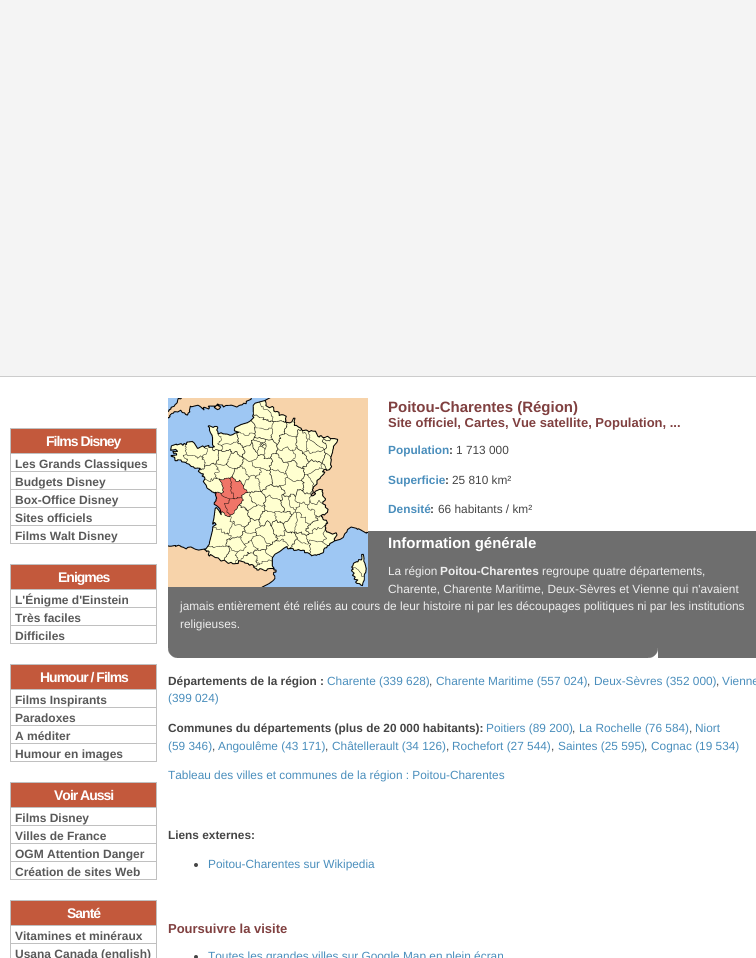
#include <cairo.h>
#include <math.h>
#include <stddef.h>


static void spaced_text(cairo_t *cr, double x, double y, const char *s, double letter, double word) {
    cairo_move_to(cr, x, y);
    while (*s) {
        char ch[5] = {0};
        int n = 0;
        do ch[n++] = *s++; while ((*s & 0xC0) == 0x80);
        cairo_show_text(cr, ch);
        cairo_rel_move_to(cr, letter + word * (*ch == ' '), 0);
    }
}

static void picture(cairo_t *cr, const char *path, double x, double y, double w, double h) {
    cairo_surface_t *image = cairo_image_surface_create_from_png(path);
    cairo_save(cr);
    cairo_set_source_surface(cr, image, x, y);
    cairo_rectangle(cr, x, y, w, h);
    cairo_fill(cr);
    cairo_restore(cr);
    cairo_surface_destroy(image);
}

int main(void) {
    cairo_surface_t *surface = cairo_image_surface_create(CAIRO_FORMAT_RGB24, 756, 958);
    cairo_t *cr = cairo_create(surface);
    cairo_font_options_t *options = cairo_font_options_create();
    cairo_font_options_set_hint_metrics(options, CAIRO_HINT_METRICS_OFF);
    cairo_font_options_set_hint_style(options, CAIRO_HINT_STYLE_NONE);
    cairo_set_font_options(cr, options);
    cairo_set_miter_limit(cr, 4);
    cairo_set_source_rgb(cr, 1, 1, 1);
    cairo_paint(cr);
    cairo_set_source_rgb(cr, 0.957, 0.957, 0.957);
    cairo_rectangle(cr, 0, 0, 756, 376);
    cairo_fill(cr);
    cairo_set_source_rgb(cr, 0.8, 0.8, 0.8);
    cairo_rectangle(cr, 0, 376, 756, 1);
    cairo_fill(cr);
    cairo_set_source_rgb(cr, 0.765, 0.349, 0.235);
    cairo_rectangle(cr, 11, 429, 145, 24);
    cairo_fill(cr);
    cairo_set_source_rgb(cr, 0.753, 0.753, 0.753);
    cairo_rectangle(cr, 156, 428, 1, 116);
    cairo_fill(cr);
    cairo_rectangle(cr, 10, 543, 147, 1);
    cairo_fill(cr);
    cairo_rectangle(cr, 10, 428, 1, 116);
    cairo_fill(cr);
    cairo_rectangle(cr, 11, 428, 145, 1);
    cairo_fill(cr);
    cairo_select_font_face(cr, "Liberation Sans", CAIRO_FONT_SLANT_NORMAL, CAIRO_FONT_WEIGHT_BOLD);
    cairo_set_font_size(cr, 14);
    cairo_set_source_rgb(cr, 1, 1, 1);
    spaced_text(cr, 46, 446, "Films Disney", -1, 0);
    cairo_set_source_rgb(cr, 0.753, 0.753, 0.753);
    cairo_rectangle(cr, 11, 453, 145, 1);
    cairo_fill(cr);
    cairo_set_font_size(cr, 12);
    cairo_set_source_rgb(cr, 0.349, 0.349, 0.349);
    cairo_move_to(cr, 15, 468);
    cairo_show_text(cr, "Les Grands Classiques");
    cairo_set_source_rgb(cr, 0.753, 0.753, 0.753);
    cairo_rectangle(cr, 11, 471, 145, 1);
    cairo_fill(cr);
    cairo_set_source_rgb(cr, 0.349, 0.349, 0.349);
    cairo_move_to(cr, 15, 486);
    cairo_show_text(cr, "Budgets Disney");
    cairo_set_source_rgb(cr, 0.753, 0.753, 0.753);
    cairo_rectangle(cr, 11, 489, 145, 1);
    cairo_fill(cr);
    cairo_set_source_rgb(cr, 0.349, 0.349, 0.349);
    cairo_move_to(cr, 15, 504);
    cairo_show_text(cr, "Box-Office Disney");
    cairo_set_source_rgb(cr, 0.753, 0.753, 0.753);
    cairo_rectangle(cr, 11, 507, 145, 1);
    cairo_fill(cr);
    cairo_set_source_rgb(cr, 0.349, 0.349, 0.349);
    cairo_move_to(cr, 15, 522);
    cairo_show_text(cr, "Sites officiels");
    cairo_set_source_rgb(cr, 0.753, 0.753, 0.753);
    cairo_rectangle(cr, 11, 525, 145, 1);
    cairo_fill(cr);
    cairo_set_source_rgb(cr, 0.349, 0.349, 0.349);
    cairo_move_to(cr, 15, 540);
    cairo_show_text(cr, "Films Walt Disney");
    cairo_set_source_rgb(cr, 0.765, 0.349, 0.235);
    cairo_rectangle(cr, 11, 565, 145, 24);
    cairo_fill(cr);
    cairo_set_source_rgb(cr, 0.753, 0.753, 0.753);
    cairo_rectangle(cr, 156, 564, 1, 80);
    cairo_fill(cr);
    cairo_rectangle(cr, 10, 643, 147, 1);
    cairo_fill(cr);
    cairo_rectangle(cr, 10, 564, 1, 80);
    cairo_fill(cr);
    cairo_rectangle(cr, 11, 564, 145, 1);
    cairo_fill(cr);
    cairo_set_font_size(cr, 14);
    cairo_set_source_rgb(cr, 1, 1, 1);
    spaced_text(cr, 58, 582, "Enigmes", -1, 0);
    cairo_set_source_rgb(cr, 0.753, 0.753, 0.753);
    cairo_rectangle(cr, 11, 589, 145, 1);
    cairo_fill(cr);
    cairo_set_font_size(cr, 12);
    cairo_set_source_rgb(cr, 0.349, 0.349, 0.349);
    cairo_move_to(cr, 15, 604);
    cairo_show_text(cr, "L'Énigme d'Einstein");
    cairo_set_source_rgb(cr, 0.753, 0.753, 0.753);
    cairo_rectangle(cr, 11, 607, 145, 1);
    cairo_fill(cr);
    cairo_set_source_rgb(cr, 0.349, 0.349, 0.349);
    cairo_move_to(cr, 15, 622);
    cairo_show_text(cr, "Très faciles");
    cairo_set_source_rgb(cr, 0.753, 0.753, 0.753);
    cairo_rectangle(cr, 11, 625, 145, 1);
    cairo_fill(cr);
    cairo_set_source_rgb(cr, 0.349, 0.349, 0.349);
    cairo_move_to(cr, 15, 640);
    cairo_show_text(cr, "Difficiles");
    cairo_set_source_rgb(cr, 0.765, 0.349, 0.235);
    cairo_rectangle(cr, 11, 665, 145, 24);
    cairo_fill(cr);
    cairo_set_source_rgb(cr, 0.753, 0.753, 0.753);
    cairo_rectangle(cr, 156, 664, 1, 98);
    cairo_fill(cr);
    cairo_rectangle(cr, 10, 761, 147, 1);
    cairo_fill(cr);
    cairo_rectangle(cr, 10, 664, 1, 98);
    cairo_fill(cr);
    cairo_rectangle(cr, 11, 664, 145, 1);
    cairo_fill(cr);
    cairo_set_font_size(cr, 14);
    cairo_set_source_rgb(cr, 1, 1, 1);
    spaced_text(cr, 40, 682, "Humour / Films", -1, 0);
    cairo_set_source_rgb(cr, 0.753, 0.753, 0.753);
    cairo_rectangle(cr, 11, 689, 145, 1);
    cairo_fill(cr);
    cairo_set_font_size(cr, 12);
    cairo_set_source_rgb(cr, 0.349, 0.349, 0.349);
    cairo_move_to(cr, 15, 704);
    cairo_show_text(cr, "Films Inspirants");
    cairo_set_source_rgb(cr, 0.753, 0.753, 0.753);
    cairo_rectangle(cr, 11, 707, 145, 1);
    cairo_fill(cr);
    cairo_set_source_rgb(cr, 0.349, 0.349, 0.349);
    cairo_move_to(cr, 15, 722);
    cairo_show_text(cr, "Paradoxes");
    cairo_set_source_rgb(cr, 0.753, 0.753, 0.753);
    cairo_rectangle(cr, 11, 725, 145, 1);
    cairo_fill(cr);
    cairo_set_source_rgb(cr, 0.349, 0.349, 0.349);
    cairo_move_to(cr, 15, 740);
    cairo_show_text(cr, "A méditer");
    cairo_set_source_rgb(cr, 0.753, 0.753, 0.753);
    cairo_rectangle(cr, 11, 743, 145, 1);
    cairo_fill(cr);
    cairo_set_source_rgb(cr, 0.349, 0.349, 0.349);
    cairo_move_to(cr, 15, 758);
    cairo_show_text(cr, "Humour en images");
    cairo_set_source_rgb(cr, 0.765, 0.349, 0.235);
    cairo_rectangle(cr, 11, 783, 145, 24);
    cairo_fill(cr);
    cairo_set_source_rgb(cr, 0.753, 0.753, 0.753);
    cairo_rectangle(cr, 156, 782, 1, 98);
    cairo_fill(cr);
    cairo_rectangle(cr, 10, 879, 147, 1);
    cairo_fill(cr);
    cairo_rectangle(cr, 10, 782, 1, 98);
    cairo_fill(cr);
    cairo_rectangle(cr, 11, 782, 145, 1);
    cairo_fill(cr);
    cairo_set_font_size(cr, 14);
    cairo_set_source_rgb(cr, 1, 1, 1);
    spaced_text(cr, 54, 800, "Voir Aussi", -1, 0);
    cairo_set_source_rgb(cr, 0.753, 0.753, 0.753);
    cairo_rectangle(cr, 11, 807, 145, 1);
    cairo_fill(cr);
    cairo_set_font_size(cr, 12);
    cairo_set_source_rgb(cr, 0.349, 0.349, 0.349);
    cairo_move_to(cr, 15, 822);
    cairo_show_text(cr, "Films Disney");
    cairo_set_source_rgb(cr, 0.753, 0.753, 0.753);
    cairo_rectangle(cr, 11, 825, 145, 1);
    cairo_fill(cr);
    cairo_set_source_rgb(cr, 0.349, 0.349, 0.349);
    cairo_move_to(cr, 15, 840);
    cairo_show_text(cr, "Villes de France");
    cairo_set_source_rgb(cr, 0.753, 0.753, 0.753);
    cairo_rectangle(cr, 11, 843, 145, 1);
    cairo_fill(cr);
    cairo_set_source_rgb(cr, 0.349, 0.349, 0.349);
    cairo_move_to(cr, 15, 858);
    cairo_show_text(cr, "OGM Attention Danger");
    cairo_set_source_rgb(cr, 0.753, 0.753, 0.753);
    cairo_rectangle(cr, 11, 861, 145, 1);
    cairo_fill(cr);
    cairo_set_source_rgb(cr, 0.349, 0.349, 0.349);
    cairo_move_to(cr, 15, 876);
    cairo_show_text(cr, "Création de sites Web");
    cairo_set_source_rgb(cr, 0.765, 0.349, 0.235);
    cairo_rectangle(cr, 11, 901, 145, 24);
    cairo_fill(cr);
    cairo_set_source_rgb(cr, 0.753, 0.753, 0.753);
    cairo_rectangle(cr, 156, 900, 1, 58);
    cairo_fill(cr);
    cairo_rectangle(cr, 10, 900, 1, 58);
    cairo_fill(cr);
    cairo_rectangle(cr, 11, 900, 145, 1);
    cairo_fill(cr);
    cairo_set_font_size(cr, 14);
    cairo_set_source_rgb(cr, 1, 1, 1);
    spaced_text(cr, 67, 918, "Santé", -1, 0);
    cairo_set_source_rgb(cr, 0.753, 0.753, 0.753);
    cairo_rectangle(cr, 11, 925, 145, 1);
    cairo_fill(cr);
    cairo_set_font_size(cr, 12);
    cairo_set_source_rgb(cr, 0.349, 0.349, 0.349);
    cairo_move_to(cr, 15, 940);
    cairo_show_text(cr, "Vitamines et minéraux");
    cairo_set_source_rgb(cr, 0.753, 0.753, 0.753);
    cairo_rectangle(cr, 11, 943, 145, 1);
    cairo_fill(cr);
    cairo_set_source_rgb(cr, 0.349, 0.349, 0.349);
    cairo_move_to(cr, 15, 958);
    cairo_show_text(cr, "Usana Canada (english)");
    cairo_set_source_rgb(cr, 0.431, 0.431, 0.431);
    cairo_rectangle(cr, 168, 531, 588, 127);
    cairo_fill(cr);
    picture(cr, "img1.png", 168, 398, 200, 189);
    cairo_set_font_size(cr, 15);
    cairo_set_source_rgb(cr, 0.502, 0.251, 0.251);
    cairo_move_to(cr, 388, 412);
    cairo_show_text(cr, "Poitou-Charentes (Région)");
    cairo_set_font_size(cr, 13);
    cairo_move_to(cr, 388, 427);
    cairo_show_text(cr, "Site officiel, Cartes, Vue satellite, Population, ...");
    cairo_set_font_size(cr, 11.85);
    cairo_set_source_rgb(cr, 0.29, 0.557, 0.737);
    cairo_move_to(cr, 388, 454);
    cairo_show_text(cr, "Population");
    cairo_set_source_rgb(cr, 0.271, 0.271, 0.271);
    cairo_move_to(cr, 449, 454);
    cairo_show_text(cr, ":");
    cairo_select_font_face(cr, "Liberation Sans", CAIRO_FONT_SLANT_NORMAL, CAIRO_FONT_WEIGHT_NORMAL);
    cairo_move_to(cr, 456, 454);
    cairo_show_text(cr, "1 713 000");
    cairo_select_font_face(cr, "Liberation Sans", CAIRO_FONT_SLANT_NORMAL, CAIRO_FONT_WEIGHT_BOLD);
    cairo_set_source_rgb(cr, 0.29, 0.557, 0.737);
    cairo_move_to(cr, 388, 484);
    cairo_show_text(cr, "Superficie");
    cairo_set_source_rgb(cr, 0.271, 0.271, 0.271);
    cairo_move_to(cr, 445, 484);
    cairo_show_text(cr, ":");
    cairo_select_font_face(cr, "Liberation Sans", CAIRO_FONT_SLANT_NORMAL, CAIRO_FONT_WEIGHT_NORMAL);
    cairo_move_to(cr, 452, 484);
    cairo_show_text(cr, "25 810 km²");
    cairo_select_font_face(cr, "Liberation Sans", CAIRO_FONT_SLANT_NORMAL, CAIRO_FONT_WEIGHT_BOLD);
    cairo_set_source_rgb(cr, 0.29, 0.557, 0.737);
    cairo_move_to(cr, 388, 513);
    cairo_show_text(cr, "Densité");
    cairo_set_source_rgb(cr, 0.271, 0.271, 0.271);
    cairo_move_to(cr, 430, 513);
    cairo_show_text(cr, ":");
    cairo_select_font_face(cr, "Liberation Sans", CAIRO_FONT_SLANT_NORMAL, CAIRO_FONT_WEIGHT_NORMAL);
    cairo_move_to(cr, 438, 513);
    cairo_show_text(cr, "66 habitants / km²");
    picture(cr, "img2.png", 168, 648, 490, 10);
    cairo_select_font_face(cr, "Liberation Sans", CAIRO_FONT_SLANT_NORMAL, CAIRO_FONT_WEIGHT_BOLD);
    cairo_set_font_size(cr, 15);
    cairo_set_source_rgb(cr, 1, 1, 1);
    cairo_move_to(cr, 388, 548);
    cairo_show_text(cr, "Information générale");
    cairo_select_font_face(cr, "Liberation Sans", CAIRO_FONT_SLANT_NORMAL, CAIRO_FONT_WEIGHT_NORMAL);
    cairo_set_font_size(cr, 11.85);
    cairo_set_source_rgb(cr, 0.933, 0.933, 0.933);
    cairo_move_to(cr, 388, 575);
    cairo_show_text(cr, "La région");
    cairo_select_font_face(cr, "Liberation Sans", CAIRO_FONT_SLANT_NORMAL, CAIRO_FONT_WEIGHT_BOLD);
    cairo_move_to(cr, 440, 575);
    cairo_show_text(cr, "Poitou-Charentes");
    cairo_select_font_face(cr, "Liberation Sans", CAIRO_FONT_SLANT_NORMAL, CAIRO_FONT_WEIGHT_NORMAL);
    cairo_move_to(cr, 542, 575);
    cairo_show_text(cr, "regroupe quatre départements,");
    cairo_move_to(cr, 388, 593);
    cairo_show_text(cr, "Charente, Charente Maritime, Deux-Sèvres et Vienne qui n'avaient");
    cairo_move_to(cr, 180, 610);
    cairo_show_text(cr, "jamais entièrement été reliés au cours de leur histoire ni par les découpages politiques ni par les institutions");
    cairo_move_to(cr, 180, 628);
    cairo_show_text(cr, "religieuses.");
    cairo_select_font_face(cr, "Liberation Sans", CAIRO_FONT_SLANT_NORMAL, CAIRO_FONT_WEIGHT_BOLD);
    cairo_set_source_rgb(cr, 0.271, 0.271, 0.271);
    cairo_move_to(cr, 168, 685);
    cairo_show_text(cr, "Départements de la région :");
    cairo_select_font_face(cr, "Liberation Sans", CAIRO_FONT_SLANT_NORMAL, CAIRO_FONT_WEIGHT_NORMAL);
    cairo_set_source_rgb(cr, 0.29, 0.557, 0.737);
    cairo_move_to(cr, 327, 685);
    cairo_show_text(cr, "Charente (339 628)");
    cairo_set_source_rgb(cr, 0.271, 0.271, 0.271);
    cairo_move_to(cr, 429, 685);
    cairo_show_text(cr, ",");
    cairo_set_source_rgb(cr, 0.29, 0.557, 0.737);
    cairo_move_to(cr, 436, 685);
    cairo_show_text(cr, "Charente Maritime (557 024)");
    cairo_set_source_rgb(cr, 0.271, 0.271, 0.271);
    cairo_move_to(cr, 587, 685);
    cairo_show_text(cr, ",");
    cairo_set_source_rgb(cr, 0.29, 0.557, 0.737);
    cairo_move_to(cr, 594, 685);
    cairo_show_text(cr, "Deux-Sèvres (352 000)");
    cairo_set_source_rgb(cr, 0.271, 0.271, 0.271);
    cairo_move_to(cr, 716, 685);
    cairo_show_text(cr, ",");
    cairo_set_source_rgb(cr, 0.29, 0.557, 0.737);
    cairo_move_to(cr, 722, 685);
    cairo_show_text(cr, "Vienne");
    cairo_move_to(cr, 168, 702);
    cairo_show_text(cr, "(399 024)");
    cairo_select_font_face(cr, "Liberation Sans", CAIRO_FONT_SLANT_NORMAL, CAIRO_FONT_WEIGHT_BOLD);
    cairo_set_source_rgb(cr, 0.271, 0.271, 0.271);
    cairo_move_to(cr, 168, 732);
    cairo_show_text(cr, "Communes du départements (plus de 20 000 habitants):");
    cairo_select_font_face(cr, "Liberation Sans", CAIRO_FONT_SLANT_NORMAL, CAIRO_FONT_WEIGHT_NORMAL);
    cairo_set_source_rgb(cr, 0.29, 0.557, 0.737);
    cairo_move_to(cr, 486, 732);
    cairo_show_text(cr, "Poitiers (89 200)");
    cairo_set_source_rgb(cr, 0.271, 0.271, 0.271);
    cairo_move_to(cr, 572, 732);
    cairo_show_text(cr, ",");
    cairo_set_source_rgb(cr, 0.29, 0.557, 0.737);
    cairo_move_to(cr, 579, 732);
    cairo_show_text(cr, "La Rochelle (76 584)");
    cairo_set_source_rgb(cr, 0.271, 0.271, 0.271);
    cairo_move_to(cr, 689, 732);
    cairo_show_text(cr, ",");
    cairo_set_source_rgb(cr, 0.29, 0.557, 0.737);
    cairo_move_to(cr, 695, 732);
    cairo_show_text(cr, "Niort");
    cairo_move_to(cr, 168, 750);
    cairo_show_text(cr, "(59 346)");
    cairo_set_source_rgb(cr, 0.271, 0.271, 0.271);
    cairo_move_to(cr, 212, 750);
    cairo_show_text(cr, ",");
    cairo_set_source_rgb(cr, 0.29, 0.557, 0.737);
    cairo_move_to(cr, 218, 750);
    cairo_show_text(cr, "Angoulême (43 171)");
    cairo_set_source_rgb(cr, 0.271, 0.271, 0.271);
    cairo_move_to(cr, 325, 750);
    cairo_show_text(cr, ",");
    cairo_set_source_rgb(cr, 0.29, 0.557, 0.737);
    cairo_move_to(cr, 332, 750);
    cairo_show_text(cr, "Châtellerault (34 126)");
    cairo_set_source_rgb(cr, 0.271, 0.271, 0.271);
    cairo_move_to(cr, 446, 750);
    cairo_show_text(cr, ",");
    cairo_set_source_rgb(cr, 0.29, 0.557, 0.737);
    cairo_move_to(cr, 452, 750);
    cairo_show_text(cr, "Rochefort (27 544)");
    cairo_set_source_rgb(cr, 0.271, 0.271, 0.271);
    cairo_move_to(cr, 551, 750);
    cairo_show_text(cr, ",");
    cairo_set_source_rgb(cr, 0.29, 0.557, 0.737);
    cairo_move_to(cr, 558, 750);
    cairo_show_text(cr, "Saintes (25 595)");
    cairo_set_source_rgb(cr, 0.271, 0.271, 0.271);
    cairo_move_to(cr, 644, 750);
    cairo_show_text(cr, ",");
    cairo_set_source_rgb(cr, 0.29, 0.557, 0.737);
    cairo_move_to(cr, 651, 750);
    cairo_show_text(cr, "Cognac (19 534)");
    cairo_move_to(cr, 168, 779);
    cairo_show_text(cr, "Tableau des villes et communes de la région : Poitou-Charentes");
    cairo_select_font_face(cr, "Liberation Sans", CAIRO_FONT_SLANT_NORMAL, CAIRO_FONT_WEIGHT_BOLD);
    cairo_set_source_rgb(cr, 0.271, 0.271, 0.271);
    cairo_move_to(cr, 168, 839);
    cairo_show_text(cr, "Liens externes:");
    cairo_new_path(cr);
    cairo_arc(cr, 196, 865, 2, 0, 2 * M_PI);
    cairo_fill(cr);
    cairo_select_font_face(cr, "Liberation Sans", CAIRO_FONT_SLANT_NORMAL, CAIRO_FONT_WEIGHT_NORMAL);
    cairo_set_source_rgb(cr, 0.29, 0.557, 0.737);
    cairo_move_to(cr, 208, 868);
    cairo_show_text(cr, "Poitou-Charentes sur Wikipedia");
    cairo_select_font_face(cr, "Liberation Sans", CAIRO_FONT_SLANT_NORMAL, CAIRO_FONT_WEIGHT_BOLD);
    cairo_set_font_size(cr, 13);
    cairo_set_source_rgb(cr, 0.502, 0.251, 0.251);
    cairo_move_to(cr, 168, 933);
    cairo_show_text(cr, "Poursuivre la visite");
    cairo_set_source_rgb(cr, 0.271, 0.271, 0.271);
    cairo_new_path(cr);
    cairo_arc(cr, 196, 957, 2, 0, 2 * M_PI);
    cairo_fill(cr);
    cairo_select_font_face(cr, "Liberation Sans", CAIRO_FONT_SLANT_NORMAL, CAIRO_FONT_WEIGHT_NORMAL);
    cairo_set_font_size(cr, 11.85);
    cairo_set_source_rgb(cr, 0.29, 0.557, 0.737);
    cairo_move_to(cr, 208, 960);
    cairo_show_text(cr, "Toutes les grandes villes sur Google Map en plein écran");
    cairo_surface_write_to_png(surface, "page.png");
    cairo_font_options_destroy(options);
    cairo_destroy(cr);
    cairo_surface_destroy(surface);
    return 0;
}
